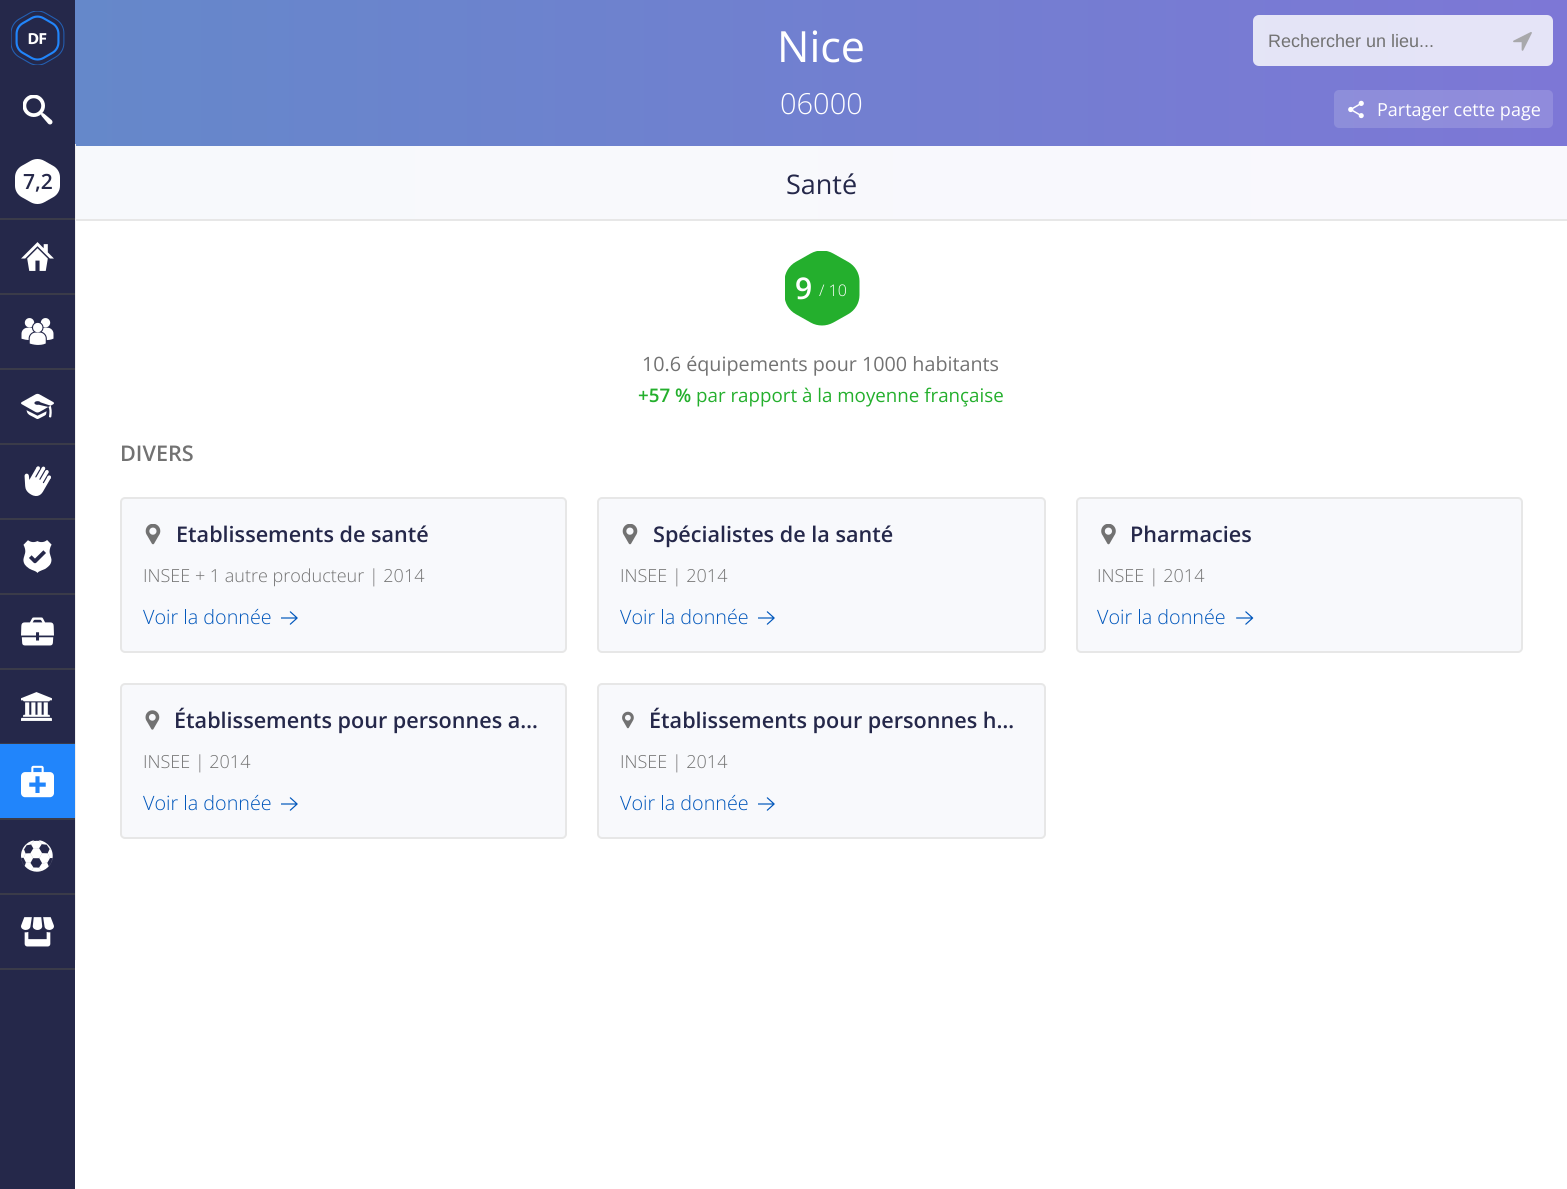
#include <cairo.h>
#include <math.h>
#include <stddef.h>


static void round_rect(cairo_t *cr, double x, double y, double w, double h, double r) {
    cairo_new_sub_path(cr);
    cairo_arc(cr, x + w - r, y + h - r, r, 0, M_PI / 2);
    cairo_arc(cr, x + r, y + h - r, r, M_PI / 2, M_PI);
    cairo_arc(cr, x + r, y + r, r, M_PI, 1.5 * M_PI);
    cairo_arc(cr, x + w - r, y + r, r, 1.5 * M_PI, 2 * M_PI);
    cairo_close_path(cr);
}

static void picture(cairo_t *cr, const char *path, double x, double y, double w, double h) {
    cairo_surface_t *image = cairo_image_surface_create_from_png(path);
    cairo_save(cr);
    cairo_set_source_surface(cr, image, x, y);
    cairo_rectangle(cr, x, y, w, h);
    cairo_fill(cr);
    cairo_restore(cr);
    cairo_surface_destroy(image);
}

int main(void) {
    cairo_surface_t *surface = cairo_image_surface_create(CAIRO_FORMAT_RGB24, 1567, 1189);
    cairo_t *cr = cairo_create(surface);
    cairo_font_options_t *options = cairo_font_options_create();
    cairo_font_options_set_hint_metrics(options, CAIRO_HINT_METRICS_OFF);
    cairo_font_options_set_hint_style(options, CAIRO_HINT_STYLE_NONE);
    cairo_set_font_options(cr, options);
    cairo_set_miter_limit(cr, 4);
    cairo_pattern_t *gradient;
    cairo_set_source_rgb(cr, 1, 1, 1);
    cairo_paint(cr);
    cairo_set_source_rgb(cr, 0.145, 0.157, 0.29);
    cairo_rectangle(cr, 0, 0, 75, 1189);
    cairo_fill(cr);
    picture(cr, "img1.png", 11, 11, 54, 54);
    picture(cr, "img2.png", 23, 95, 30, 30);
    cairo_set_source_rgb(cr, 0.227, 0.231, 0.286);
    cairo_rectangle(cr, 0, 218, 75, 2);
    cairo_fill(cr);
    picture(cr, "img3.png", 15, 159, 45, 45);
    cairo_select_font_face(cr, "Open Sans SemiBold", CAIRO_FONT_SLANT_NORMAL, CAIRO_FONT_WEIGHT_NORMAL);
    cairo_set_font_size(cr, 21);
    cairo_set_source_rgb(cr, 0.145, 0.157, 0.29);
    cairo_move_to(cr, 23, 189);
    cairo_show_text(cr, "7,2");
    cairo_set_source_rgb(cr, 0.227, 0.231, 0.286);
    cairo_rectangle(cr, 0, 293, 75, 2);
    cairo_fill(cr);
    picture(cr, "img4.png", 21, 242, 33, 29);
    cairo_rectangle(cr, 0, 368, 75, 2);
    cairo_fill(cr);
    picture(cr, "img5.png", 21, 318, 33, 27);
    cairo_rectangle(cr, 0, 443, 75, 2);
    cairo_fill(cr);
    picture(cr, "img6.png", 21, 393, 33, 26);
    cairo_rectangle(cr, 0, 518, 75, 2);
    cairo_fill(cr);
    picture(cr, "img7.png", 24, 466, 27, 30);
    cairo_rectangle(cr, 0, 593, 75, 2);
    cairo_fill(cr);
    picture(cr, "img8.png", 23, 540, 29, 33);
    cairo_rectangle(cr, 0, 668, 75, 2);
    cairo_fill(cr);
    picture(cr, "img9.png", 21, 617, 33, 29);
    cairo_rectangle(cr, 0, 743, 75, 1);
    cairo_fill(cr);
    picture(cr, "img10.png", 21, 692, 31, 29);
    cairo_set_source_rgb(cr, 0.129, 0.522, 0.984);
    cairo_rectangle(cr, 0, 744, 75, 74);
    cairo_fill(cr);
    cairo_set_source_rgb(cr, 0.227, 0.231, 0.286);
    cairo_rectangle(cr, 0, 818, 75, 2);
    cairo_fill(cr);
    picture(cr, "img11.png", 21, 765, 33, 33);
    cairo_rectangle(cr, 0, 893, 75, 2);
    cairo_fill(cr);
    picture(cr, "img12.png", 21, 840, 32, 32);
    cairo_rectangle(cr, 0, 968, 75, 2);
    cairo_fill(cr);
    picture(cr, "img13.png", 21, 917, 33, 30);
    gradient = cairo_pattern_create_linear(75, 110, 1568, 110);
    cairo_pattern_add_color_stop_rgba(gradient, 0, 0.396, 0.533, 0.792, 1);
    cairo_pattern_add_color_stop_rgba(gradient, 1, 0.49, 0.467, 0.839, 1);
    cairo_set_source(cr, gradient);
    cairo_pattern_destroy(gradient);
    cairo_rectangle(cr, 75, 0, 1492, 146);
    cairo_fill(cr);
    cairo_set_source_rgb(cr, 0.906, 0.906, 0.906);
    cairo_rectangle(cr, 75, 219, 1492, 2);
    cairo_fill(cr);
    cairo_set_source_rgb(cr, 0.933, 0.933, 0.933);
    cairo_rectangle(cr, 75, 144, 1, 816);
    cairo_fill(cr);
    gradient = cairo_pattern_create_linear(75, 110, 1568, 110);
    cairo_pattern_add_color_stop_rgba(gradient, 0, 0.969, 0.976, 0.988, 1);
    cairo_pattern_add_color_stop_rgba(gradient, 1, 0.976, 0.973, 0.992, 1);
    cairo_set_source(cr, gradient);
    cairo_pattern_destroy(gradient);
    cairo_rectangle(cr, 76, 146, 1491, 73);
    cairo_fill(cr);
    cairo_select_font_face(cr, "Open Sans", CAIRO_FONT_SLANT_NORMAL, CAIRO_FONT_WEIGHT_NORMAL);
    cairo_set_font_size(cr, 43);
    cairo_set_source_rgb(cr, 1, 1, 1);
    cairo_move_to(cr, 777, 62);
    cairo_show_text(cr, "Nice");
    cairo_select_font_face(cr, "Open Sans Light", CAIRO_FONT_SLANT_NORMAL, CAIRO_FONT_WEIGHT_NORMAL);
    cairo_set_font_size(cr, 29);
    cairo_move_to(cr, 780, 114);
    cairo_show_text(cr, "06000");
    cairo_set_source_rgba(cr, 1, 1, 1, 0.15);
    round_rect(cr, 1334, 90, 219, 38, 5);
    cairo_fill(cr);
    picture(cr, "img14.png", 1348, 100, 16, 19);
    cairo_select_font_face(cr, "Open Sans", CAIRO_FONT_SLANT_NORMAL, CAIRO_FONT_WEIGHT_NORMAL);
    cairo_set_font_size(cr, 18);
    cairo_set_source_rgb(cr, 1, 1, 1);
    cairo_move_to(cr, 1377, 116);
    cairo_show_text(cr, "Partager cette page");
    cairo_set_font_size(cr, 27);
    cairo_set_source_rgb(cr, 0.145, 0.157, 0.29);
    cairo_move_to(cr, 786, 194);
    cairo_show_text(cr, "Santé");
    cairo_set_source_rgba(cr, 1, 1, 1, 0.8);
    round_rect(cr, 1253, 15, 300, 51, 6);
    cairo_fill(cr);
    cairo_select_font_face(cr, "Liberation Sans", CAIRO_FONT_SLANT_NORMAL, CAIRO_FONT_WEIGHT_NORMAL);
    cairo_set_font_size(cr, 18);
    cairo_set_source_rgb(cr, 0.447, 0.447, 0.447);
    cairo_move_to(cr, 1268, 47);
    cairo_show_text(cr, "Rechercher un lieu...");
    picture(cr, "img15.png", 1513, 32, 19, 19);
    picture(cr, "img16.png", 785, 251, 75, 75);
    cairo_select_font_face(cr, "Open Sans SemiBold", CAIRO_FONT_SLANT_NORMAL, CAIRO_FONT_WEIGHT_NORMAL);
    cairo_set_font_size(cr, 30);
    cairo_set_source_rgb(cr, 1, 1, 1);
    cairo_move_to(cr, 795, 299);
    cairo_show_text(cr, "9");
    cairo_select_font_face(cr, "Open Sans Light", CAIRO_FONT_SLANT_NORMAL, CAIRO_FONT_WEIGHT_NORMAL);
    cairo_set_font_size(cr, 16);
    cairo_move_to(cr, 819, 296);
    cairo_show_text(cr, "/ 10");
    cairo_select_font_face(cr, "Open Sans", CAIRO_FONT_SLANT_NORMAL, CAIRO_FONT_WEIGHT_NORMAL);
    cairo_set_font_size(cr, 19.75);
    cairo_set_source_rgb(cr, 0.447, 0.447, 0.447);
    cairo_move_to(cr, 642, 371);
    cairo_show_text(cr, "10.6 équipements pour 1000 habitants");
    cairo_select_font_face(cr, "Open Sans SemiBold", CAIRO_FONT_SLANT_NORMAL, CAIRO_FONT_WEIGHT_NORMAL);
    cairo_set_font_size(cr, 18.75);
    cairo_set_source_rgb(cr, 0.141, 0.686, 0.176);
    cairo_move_to(cr, 638, 402);
    cairo_show_text(cr, "+57 %");
    cairo_select_font_face(cr, "Open Sans", CAIRO_FONT_SLANT_NORMAL, CAIRO_FONT_WEIGHT_NORMAL);
    cairo_move_to(cr, 696, 402);
    cairo_show_text(cr, "par rapport à la moyenne française");
    cairo_select_font_face(cr, "Open Sans SemiBold", CAIRO_FONT_SLANT_NORMAL, CAIRO_FONT_WEIGHT_NORMAL);
    cairo_set_font_size(cr, 21.6);
    cairo_set_source_rgb(cr, 0.447, 0.447, 0.447);
    cairo_move_to(cr, 120, 461);
    cairo_show_text(cr, "DIVERS");
    cairo_set_source_rgb(cr, 0.969, 0.976, 0.988);
    round_rect(cr, 121, 498, 445, 154, 4);
    cairo_fill_preserve(cr);
    cairo_set_source_rgb(cr, 0.906, 0.906, 0.906);
    cairo_stroke(cr);
    picture(cr, "img17.png", 145, 524, 16, 21);
    cairo_set_source_rgb(cr, 0.145, 0.157, 0.29);
    cairo_move_to(cr, 176, 542);
    cairo_show_text(cr, "Etablissements de santé");
    cairo_select_font_face(cr, "Open Sans Light", CAIRO_FONT_SLANT_NORMAL, CAIRO_FONT_WEIGHT_NORMAL);
    cairo_set_font_size(cr, 18);
    cairo_set_source_rgb(cr, 0.447, 0.447, 0.447);
    cairo_move_to(cr, 143, 582);
    cairo_show_text(cr, "INSEE + 1 autre producteur | 2014");
    cairo_set_font_size(cr, 19.75);
    cairo_set_source_rgb(cr, 0, 0.337, 0.733);
    cairo_move_to(cr, 143, 624);
    cairo_show_text(cr, "Voir la donnée");
    picture(cr, "img18.png", 281, 611, 17, 14);
    cairo_set_source_rgb(cr, 0.969, 0.976, 0.988);
    round_rect(cr, 598, 498, 447, 154, 4);
    cairo_fill_preserve(cr);
    cairo_set_source_rgb(cr, 0.906, 0.906, 0.906);
    cairo_stroke(cr);
    picture(cr, "img17.png", 622, 524, 16, 21);
    cairo_select_font_face(cr, "Open Sans SemiBold", CAIRO_FONT_SLANT_NORMAL, CAIRO_FONT_WEIGHT_NORMAL);
    cairo_set_font_size(cr, 21.6);
    cairo_set_source_rgb(cr, 0.145, 0.157, 0.29);
    cairo_move_to(cr, 653, 542);
    cairo_show_text(cr, "Spécialistes de la santé");
    cairo_select_font_face(cr, "Open Sans Light", CAIRO_FONT_SLANT_NORMAL, CAIRO_FONT_WEIGHT_NORMAL);
    cairo_set_font_size(cr, 18);
    cairo_set_source_rgb(cr, 0.447, 0.447, 0.447);
    cairo_move_to(cr, 620, 582);
    cairo_show_text(cr, "INSEE | 2014");
    cairo_set_font_size(cr, 19.75);
    cairo_set_source_rgb(cr, 0, 0.337, 0.733);
    cairo_move_to(cr, 620, 624);
    cairo_show_text(cr, "Voir la donnée");
    picture(cr, "img18.png", 758, 611, 17, 14);
    cairo_set_source_rgb(cr, 0.969, 0.976, 0.988);
    round_rect(cr, 1077, 498, 445, 154, 4);
    cairo_fill_preserve(cr);
    cairo_set_source_rgb(cr, 0.906, 0.906, 0.906);
    cairo_stroke(cr);
    picture(cr, "img19.png", 1101, 524, 15, 21);
    cairo_select_font_face(cr, "Open Sans SemiBold", CAIRO_FONT_SLANT_NORMAL, CAIRO_FONT_WEIGHT_NORMAL);
    cairo_set_font_size(cr, 21.6);
    cairo_set_source_rgb(cr, 0.145, 0.157, 0.29);
    cairo_move_to(cr, 1130, 542);
    cairo_show_text(cr, "Pharmacies");
    cairo_select_font_face(cr, "Open Sans Light", CAIRO_FONT_SLANT_NORMAL, CAIRO_FONT_WEIGHT_NORMAL);
    cairo_set_font_size(cr, 18);
    cairo_set_source_rgb(cr, 0.447, 0.447, 0.447);
    cairo_move_to(cr, 1097, 582);
    cairo_show_text(cr, "INSEE | 2014");
    cairo_set_font_size(cr, 19.75);
    cairo_set_source_rgb(cr, 0, 0.337, 0.733);
    cairo_move_to(cr, 1097, 624);
    cairo_show_text(cr, "Voir la donnée");
    picture(cr, "img20.png", 1236, 611, 18, 14);
    cairo_set_source_rgb(cr, 0.969, 0.976, 0.988);
    round_rect(cr, 121, 684, 445, 154, 4);
    cairo_fill_preserve(cr);
    cairo_set_source_rgb(cr, 0.906, 0.906, 0.906);
    cairo_stroke(cr);
    picture(cr, "img21.png", 145, 710, 15, 20);
    cairo_select_font_face(cr, "Open Sans SemiBold", CAIRO_FONT_SLANT_NORMAL, CAIRO_FONT_WEIGHT_NORMAL);
    cairo_set_font_size(cr, 21.6);
    cairo_set_source_rgb(cr, 0.145, 0.157, 0.29);
    cairo_move_to(cr, 174, 728);
    cairo_show_text(cr, "Établissements pour personnes a…");
    cairo_select_font_face(cr, "Open Sans Light", CAIRO_FONT_SLANT_NORMAL, CAIRO_FONT_WEIGHT_NORMAL);
    cairo_set_font_size(cr, 18);
    cairo_set_source_rgb(cr, 0.447, 0.447, 0.447);
    cairo_move_to(cr, 143, 768);
    cairo_show_text(cr, "INSEE | 2014");
    cairo_set_font_size(cr, 19.75);
    cairo_set_source_rgb(cr, 0, 0.337, 0.733);
    cairo_move_to(cr, 143, 810);
    cairo_show_text(cr, "Voir la donnée");
    picture(cr, "img18.png", 281, 797, 17, 14);
    cairo_set_source_rgb(cr, 0.969, 0.976, 0.988);
    round_rect(cr, 598, 684, 447, 154, 4);
    cairo_fill_preserve(cr);
    cairo_set_source_rgb(cr, 0.906, 0.906, 0.906);
    cairo_stroke(cr);
    picture(cr, "img22.png", 622, 711, 12, 18);
    cairo_select_font_face(cr, "Open Sans SemiBold", CAIRO_FONT_SLANT_NORMAL, CAIRO_FONT_WEIGHT_NORMAL);
    cairo_set_font_size(cr, 21.6);
    cairo_set_source_rgb(cr, 0.145, 0.157, 0.29);
    cairo_move_to(cr, 649, 728);
    cairo_show_text(cr, "Établissements pour personnes h…");
    cairo_select_font_face(cr, "Open Sans Light", CAIRO_FONT_SLANT_NORMAL, CAIRO_FONT_WEIGHT_NORMAL);
    cairo_set_font_size(cr, 18);
    cairo_set_source_rgb(cr, 0.447, 0.447, 0.447);
    cairo_move_to(cr, 620, 768);
    cairo_show_text(cr, "INSEE | 2014");
    cairo_set_font_size(cr, 19.75);
    cairo_set_source_rgb(cr, 0, 0.337, 0.733);
    cairo_move_to(cr, 620, 810);
    cairo_show_text(cr, "Voir la donnée");
    picture(cr, "img18.png", 758, 797, 17, 14);
    cairo_surface_write_to_png(surface, "page.png");
    cairo_font_options_destroy(options);
    cairo_destroy(cr);
    cairo_surface_destroy(surface);
    return 0;
}
